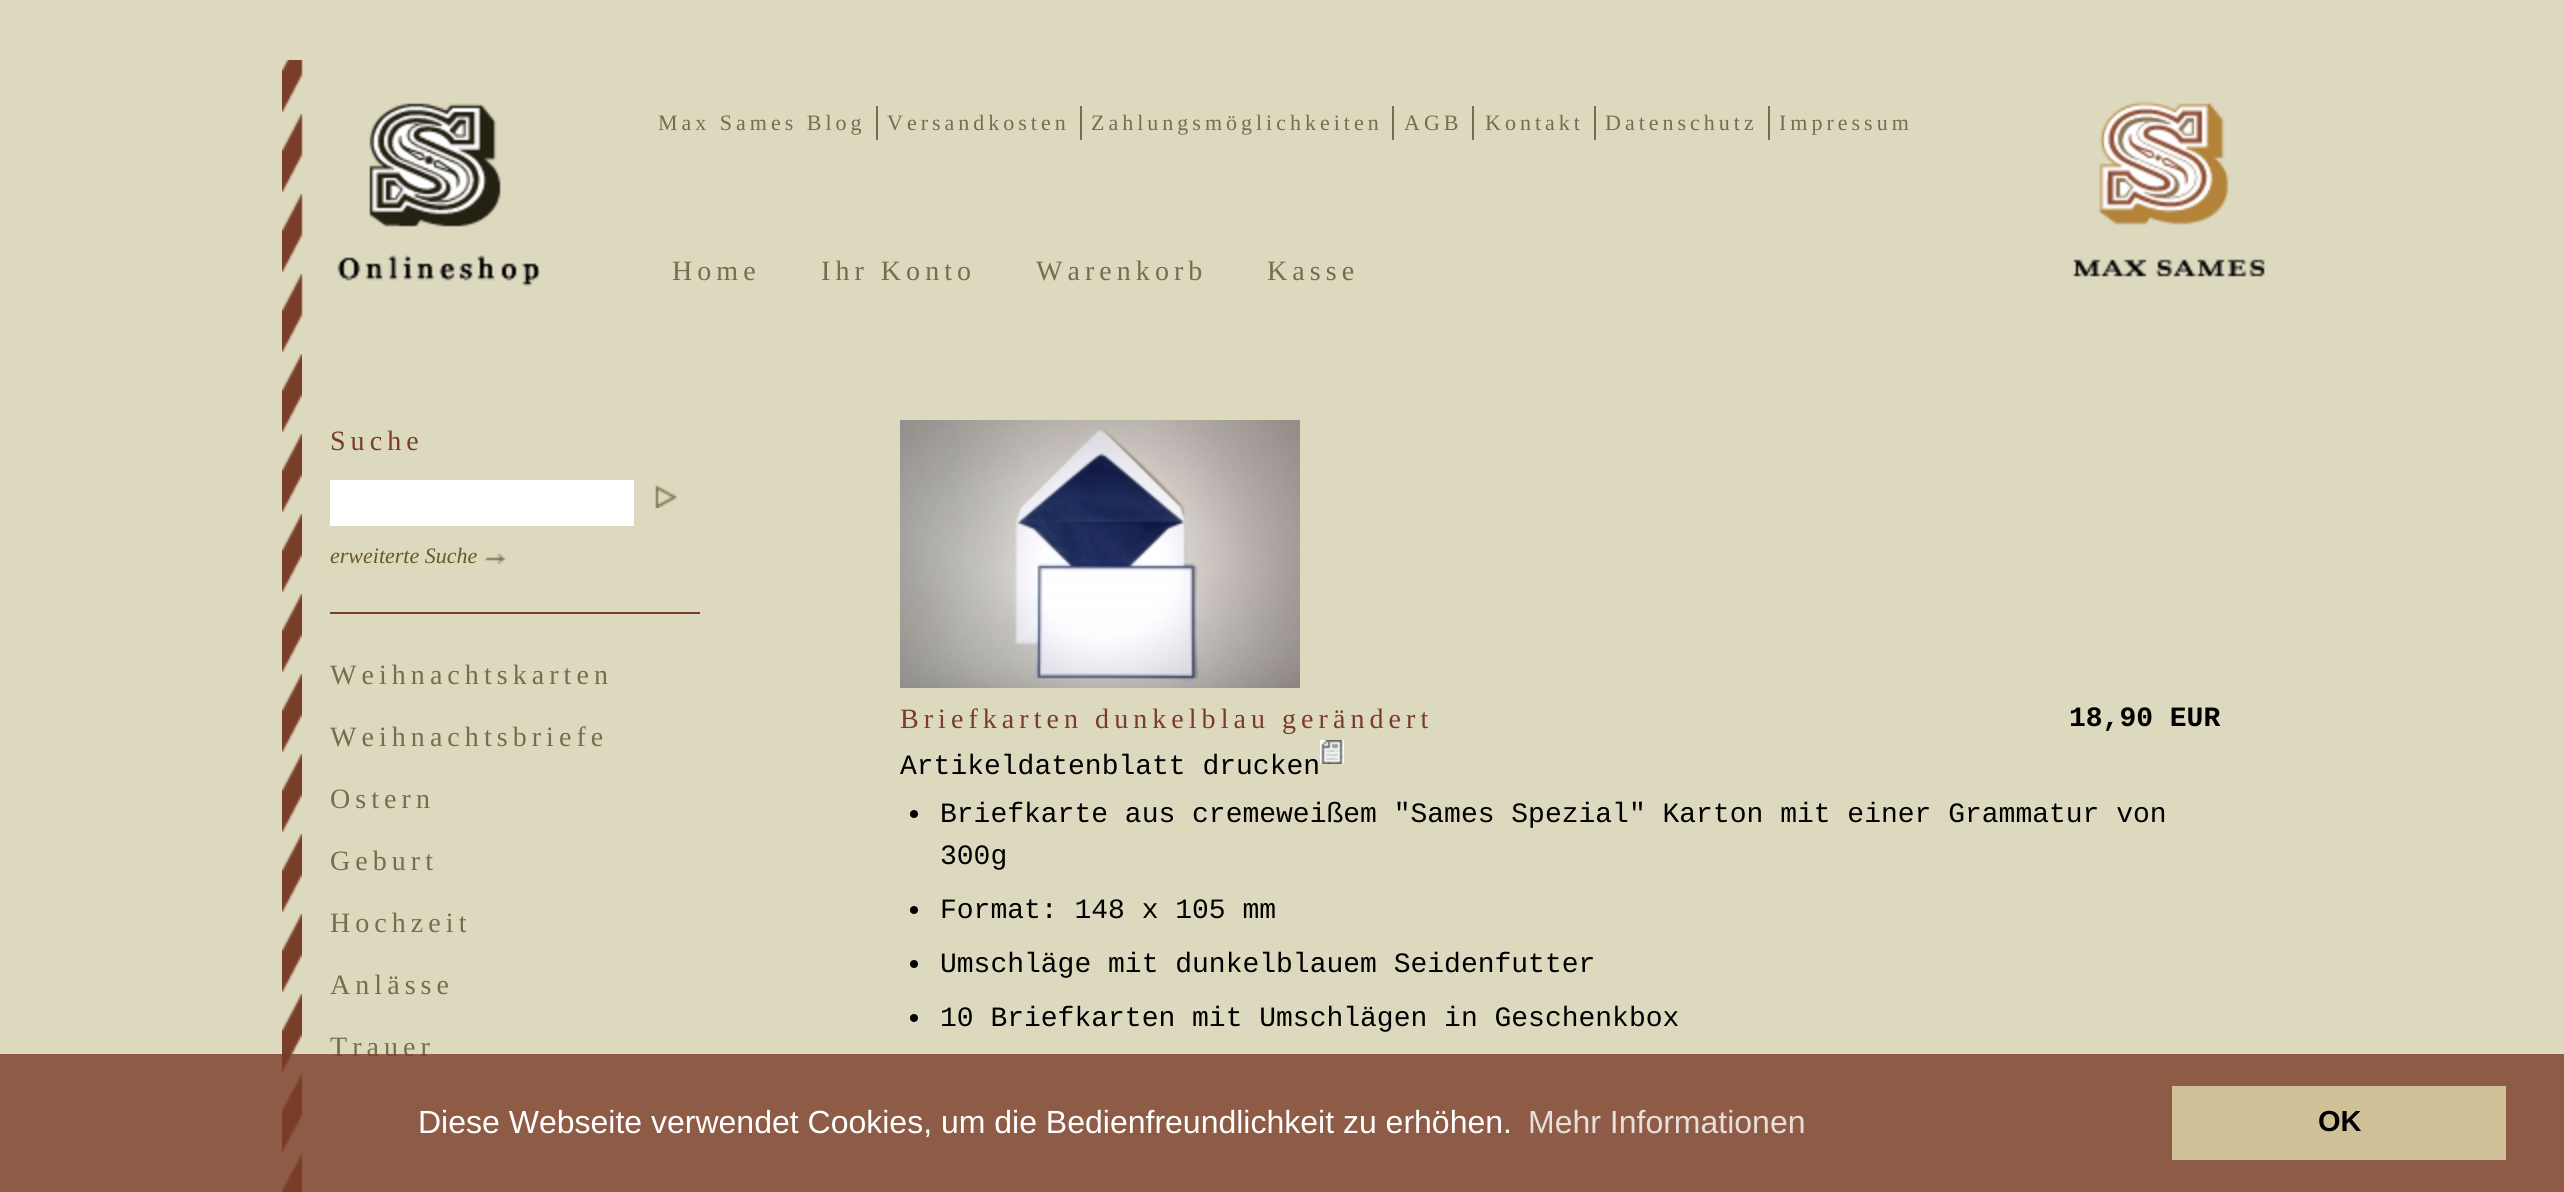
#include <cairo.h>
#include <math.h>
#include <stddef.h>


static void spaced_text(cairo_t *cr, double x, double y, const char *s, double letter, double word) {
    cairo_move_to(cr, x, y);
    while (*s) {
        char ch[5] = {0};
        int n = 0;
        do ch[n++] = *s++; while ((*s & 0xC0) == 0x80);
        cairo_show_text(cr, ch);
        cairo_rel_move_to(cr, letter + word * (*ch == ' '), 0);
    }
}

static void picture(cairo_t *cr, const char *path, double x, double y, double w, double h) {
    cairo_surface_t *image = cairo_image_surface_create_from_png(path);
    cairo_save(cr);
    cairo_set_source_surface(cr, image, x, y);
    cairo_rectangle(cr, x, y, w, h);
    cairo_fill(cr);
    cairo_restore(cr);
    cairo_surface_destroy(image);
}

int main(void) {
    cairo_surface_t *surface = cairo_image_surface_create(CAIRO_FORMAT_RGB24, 2564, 1192);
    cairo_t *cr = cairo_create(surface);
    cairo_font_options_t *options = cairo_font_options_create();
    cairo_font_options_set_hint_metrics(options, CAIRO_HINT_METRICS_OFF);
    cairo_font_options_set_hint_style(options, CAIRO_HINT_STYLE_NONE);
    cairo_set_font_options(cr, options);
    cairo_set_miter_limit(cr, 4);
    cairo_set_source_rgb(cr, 0.863, 0.851, 0.749);
    cairo_paint(cr);
    picture(cr, "img1.png", 282, 60, 20, 1132);
    picture(cr, "img2.png", 286, 60, 255, 294);
    cairo_set_source_rgb(cr, 0.447, 0.439, 0.29);
    cairo_rectangle(cr, 876, 106, 2, 34);
    cairo_fill(cr);
    cairo_select_font_face(cr, "Liberation Serif", CAIRO_FONT_SLANT_NORMAL, CAIRO_FONT_WEIGHT_NORMAL);
    cairo_set_font_size(cr, 22);
    spaced_text(cr, 658, 130, "Max Sames Blog", 4, 0);
    cairo_rectangle(cr, 1080, 106, 2, 34);
    cairo_fill(cr);
    spaced_text(cr, 887, 130, "Versandkosten", 4, 0);
    cairo_rectangle(cr, 1392, 106, 2, 34);
    cairo_fill(cr);
    spaced_text(cr, 1091, 130, "Zahlungsmöglichkeiten", 4, 0);
    cairo_rectangle(cr, 1472, 106, 2, 34);
    cairo_fill(cr);
    spaced_text(cr, 1404, 130, "AGB", 4, 0);
    cairo_rectangle(cr, 1594, 106, 2, 34);
    cairo_fill(cr);
    spaced_text(cr, 1485, 130, "Kontakt", 4, 0);
    cairo_rectangle(cr, 1768, 106, 2, 34);
    cairo_fill(cr);
    spaced_text(cr, 1605, 130, "Datenschutz", 4, 0);
    spaced_text(cr, 1779, 130, "Impressum", 4, 0);
    cairo_set_font_size(cr, 28);
    spaced_text(cr, 672, 280, "Home", 5.05, 0);
    spaced_text(cr, 821, 280, "Ihr Konto", 5.05, 0);
    spaced_text(cr, 1036, 280, "Warenkorb", 5.05, 0);
    spaced_text(cr, 1267, 280, "Kasse", 5.05, 0);
    picture(cr, "img3.png", 2073, 101, 192, 176);
    cairo_set_source_rgb(cr, 0.478, 0.239, 0.161);
    cairo_rectangle(cr, 330, 612, 370, 2);
    cairo_fill(cr);
    cairo_set_source_rgb(cr, 0.475, 0.239, 0.153);
    spaced_text(cr, 330, 450, "Suche", 5.05, 0);
    cairo_set_source_rgb(cr, 1, 1, 1);
    cairo_rectangle(cr, 330, 480, 304, 46);
    cairo_fill(cr);
    picture(cr, "img4.png", 655, 485, 23, 23);
    cairo_select_font_face(cr, "Liberation Serif", CAIRO_FONT_SLANT_ITALIC, CAIRO_FONT_WEIGHT_NORMAL);
    cairo_set_font_size(cr, 22);
    cairo_set_source_rgb(cr, 0.408, 0.349, 0.122);
    cairo_move_to(cr, 330, 563);
    cairo_show_text(cr, "erweiterte Suche");
    picture(cr, "img5.png", 484, 553, 22, 12);
    cairo_select_font_face(cr, "Liberation Serif", CAIRO_FONT_SLANT_NORMAL, CAIRO_FONT_WEIGHT_NORMAL);
    cairo_set_font_size(cr, 28);
    cairo_set_source_rgb(cr, 0.447, 0.439, 0.29);
    spaced_text(cr, 330, 684, "Weihnachtskarten", 5.05, 0);
    spaced_text(cr, 330, 746, "Weihnachtsbriefe", 5.05, 0);
    spaced_text(cr, 330, 808, "Ostern", 5.05, 0);
    spaced_text(cr, 330, 870, "Geburt", 5.05, 0);
    spaced_text(cr, 330, 932, "Hochzeit", 5.05, 0);
    spaced_text(cr, 330, 994, "Anlässe", 5.05, 0);
    spaced_text(cr, 330, 1056, "Trauer", 5.05, 0);
    picture(cr, "img6.png", 900, 420, 400, 268);
    cairo_set_source_rgb(cr, 0.475, 0.239, 0.153);
    spaced_text(cr, 900, 728, "Briefkarten dunkelblau gerändert", 5.05, 0);
    cairo_select_font_face(cr, "Liberation Mono", CAIRO_FONT_SLANT_NORMAL, CAIRO_FONT_WEIGHT_BOLD);
    cairo_set_source_rgb(cr, 0, 0, 0);
    cairo_move_to(cr, 2069, 726);
    cairo_show_text(cr, "18,90 EUR");
    cairo_select_font_face(cr, "Liberation Mono", CAIRO_FONT_SLANT_NORMAL, CAIRO_FONT_WEIGHT_NORMAL);
    cairo_move_to(cr, 900, 774);
    cairo_show_text(cr, "Artikeldatenblatt drucken");
    picture(cr, "img7.png", 1320, 740, 24, 24);
    cairo_arc(cr, 914, 814, 4, 0, 2 * M_PI);
    cairo_fill(cr);
    cairo_move_to(cr, 940, 822);
    cairo_show_text(cr, "Briefkarte aus cremeweißem \"Sames Spezial\" Karton mit einer Grammatur von");
    cairo_move_to(cr, 940, 864);
    cairo_show_text(cr, "300g");
    cairo_new_path(cr);
    cairo_arc(cr, 914, 910, 4, 0, 2 * M_PI);
    cairo_fill(cr);
    cairo_move_to(cr, 940, 918);
    cairo_show_text(cr, "Format: 148 x 105 mm");
    cairo_new_path(cr);
    cairo_arc(cr, 914, 964, 4, 0, 2 * M_PI);
    cairo_fill(cr);
    cairo_move_to(cr, 940, 972);
    cairo_show_text(cr, "Umschläge mit dunkelblauem Seidenfutter");
    cairo_new_path(cr);
    cairo_arc(cr, 914, 1018, 4, 0, 2 * M_PI);
    cairo_fill(cr);
    cairo_move_to(cr, 940, 1026);
    cairo_show_text(cr, "10 Briefkarten mit Umschlägen in Geschenkbox");
    cairo_set_source_rgba(cr, 0.478, 0.239, 0.161, 0.8);
    cairo_rectangle(cr, 0, 1054, 2564, 138);
    cairo_fill(cr);
    cairo_select_font_face(cr, "Liberation Sans", CAIRO_FONT_SLANT_NORMAL, CAIRO_FONT_WEIGHT_NORMAL);
    cairo_set_font_size(cr, 32);
    cairo_set_source_rgb(cr, 1, 1, 1);
    cairo_move_to(cr, 418, 1133);
    cairo_show_text(cr, "Diese Webseite verwendet Cookies, um die Bedienfreundlichkeit zu erhöhen.");
    cairo_set_source_rgb(cr, 0.91, 0.871, 0.855);
    cairo_move_to(cr, 1528, 1133);
    cairo_show_text(cr, "Mehr Informationen");
    cairo_set_source_rgb(cr, 0.816, 0.753, 0.596);
    cairo_rectangle(cr, 2172, 1086, 334, 74);
    cairo_fill(cr);
    cairo_select_font_face(cr, "Liberation Sans", CAIRO_FONT_SLANT_NORMAL, CAIRO_FONT_WEIGHT_BOLD);
    cairo_set_font_size(cr, 29);
    cairo_set_source_rgb(cr, 0, 0, 0);
    cairo_move_to(cr, 2318, 1131);
    cairo_show_text(cr, "OK");
    cairo_surface_write_to_png(surface, "page.png");
    cairo_font_options_destroy(options);
    cairo_destroy(cr);
    cairo_surface_destroy(surface);
    return 0;
}
